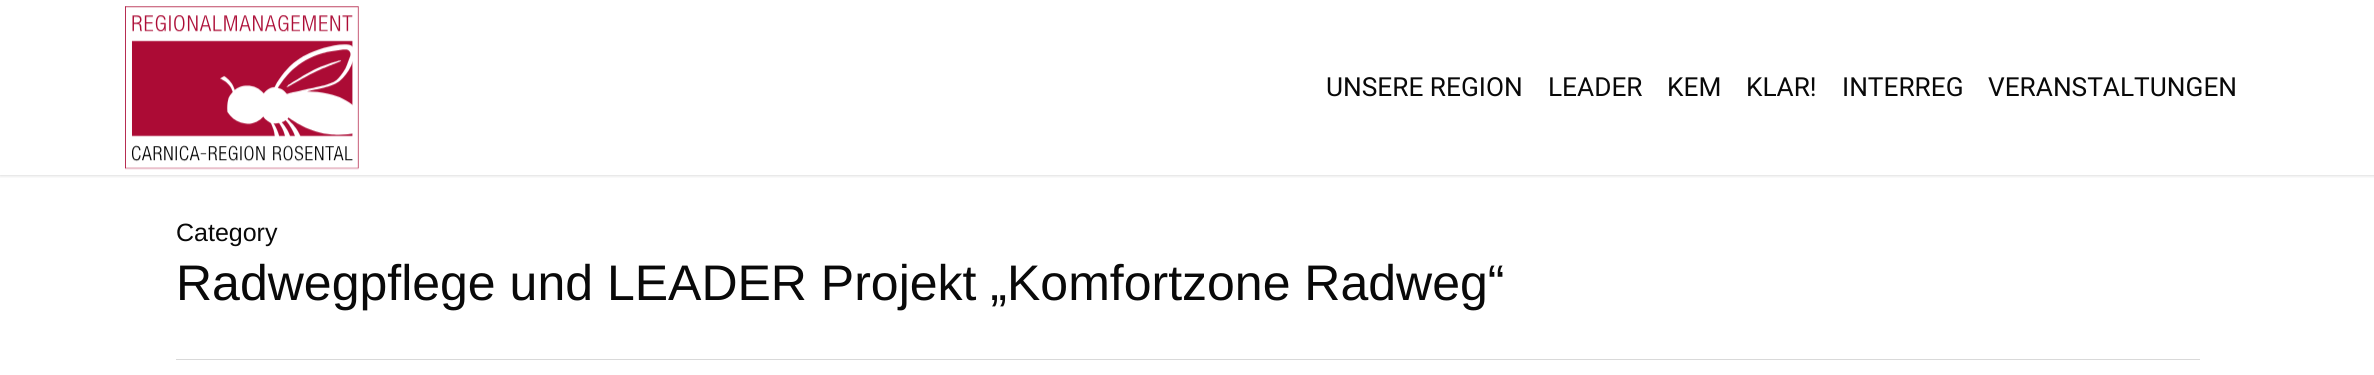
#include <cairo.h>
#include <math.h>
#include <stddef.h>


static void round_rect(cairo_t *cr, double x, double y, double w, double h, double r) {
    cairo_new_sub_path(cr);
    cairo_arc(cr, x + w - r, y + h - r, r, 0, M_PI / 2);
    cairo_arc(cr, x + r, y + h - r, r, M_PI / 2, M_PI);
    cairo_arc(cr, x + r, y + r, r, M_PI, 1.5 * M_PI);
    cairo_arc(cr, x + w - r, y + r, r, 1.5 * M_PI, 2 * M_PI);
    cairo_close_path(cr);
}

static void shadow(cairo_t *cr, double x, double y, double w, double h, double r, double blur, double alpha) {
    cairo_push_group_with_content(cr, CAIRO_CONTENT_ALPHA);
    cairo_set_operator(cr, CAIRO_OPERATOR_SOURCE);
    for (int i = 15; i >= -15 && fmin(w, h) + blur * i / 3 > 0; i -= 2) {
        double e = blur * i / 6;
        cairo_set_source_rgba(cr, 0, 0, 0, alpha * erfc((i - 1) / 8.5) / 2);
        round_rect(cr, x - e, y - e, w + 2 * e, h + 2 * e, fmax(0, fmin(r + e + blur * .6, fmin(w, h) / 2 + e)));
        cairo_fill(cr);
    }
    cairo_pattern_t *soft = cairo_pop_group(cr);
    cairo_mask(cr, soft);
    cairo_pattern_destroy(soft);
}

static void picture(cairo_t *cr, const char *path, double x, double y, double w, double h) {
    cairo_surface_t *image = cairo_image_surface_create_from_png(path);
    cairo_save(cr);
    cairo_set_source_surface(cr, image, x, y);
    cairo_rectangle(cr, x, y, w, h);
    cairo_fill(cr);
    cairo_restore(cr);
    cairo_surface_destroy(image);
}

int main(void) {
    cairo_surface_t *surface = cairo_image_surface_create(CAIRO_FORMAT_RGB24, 2374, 375);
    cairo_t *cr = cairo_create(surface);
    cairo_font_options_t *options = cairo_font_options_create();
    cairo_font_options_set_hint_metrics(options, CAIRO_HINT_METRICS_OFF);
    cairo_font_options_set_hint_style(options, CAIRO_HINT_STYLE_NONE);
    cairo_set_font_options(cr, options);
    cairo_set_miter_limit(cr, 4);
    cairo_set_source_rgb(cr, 1, 1, 1);
    cairo_paint(cr);
    cairo_save(cr);
    cairo_rectangle(cr, 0, 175, 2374, 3);
    cairo_clip(cr);
    cairo_set_source_rgb(cr, 0, 0, 0);
    shadow(cr, 0, 0, 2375, 175, 0, 2, 0.22);
    cairo_restore(cr);
    picture(cr, "img1.png", 125, 6, 234, 164);
    cairo_select_font_face(cr, "Roboto", CAIRO_FONT_SLANT_NORMAL, CAIRO_FONT_WEIGHT_NORMAL);
    cairo_set_font_size(cr, 26.25);
    cairo_set_source_rgb(cr, 0.039, 0.039, 0.039);
    cairo_move_to(cr, 1326, 96);
    cairo_show_text(cr, "UNSERE REGION");
    cairo_move_to(cr, 1548, 96);
    cairo_show_text(cr, "LEADER");
    cairo_move_to(cr, 1667, 96);
    cairo_show_text(cr, "KEM");
    cairo_move_to(cr, 1746, 96);
    cairo_show_text(cr, "KLAR!");
    cairo_move_to(cr, 1842, 96);
    cairo_show_text(cr, "INTERREG");
    cairo_move_to(cr, 1988, 96);
    cairo_show_text(cr, "VERANSTALTUNGEN");
    cairo_set_source_rgb(cr, 0.851, 0.851, 0.851);
    cairo_rectangle(cr, 176, 359, 2024, 1);
    cairo_fill(cr);
    cairo_select_font_face(cr, "Liberation Sans", CAIRO_FONT_SLANT_NORMAL, CAIRO_FONT_WEIGHT_NORMAL);
    cairo_set_font_size(cr, 25);
    cairo_set_source_rgb(cr, 0.039, 0.039, 0.039);
    cairo_move_to(cr, 176, 241);
    cairo_show_text(cr, "Category");
    cairo_set_font_size(cr, 50);
    cairo_move_to(cr, 176, 300);
    cairo_show_text(cr, "Radwegpflege und LEADER Projekt „Komfortzone Radweg“");
    cairo_surface_write_to_png(surface, "page.png");
    cairo_font_options_destroy(options);
    cairo_destroy(cr);
    cairo_surface_destroy(surface);
    return 0;
}
